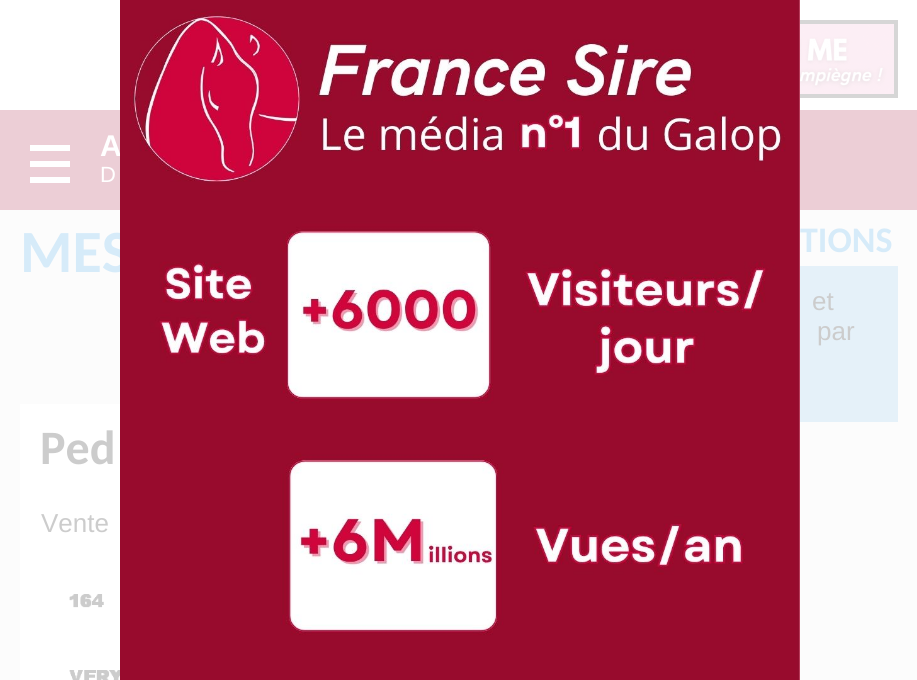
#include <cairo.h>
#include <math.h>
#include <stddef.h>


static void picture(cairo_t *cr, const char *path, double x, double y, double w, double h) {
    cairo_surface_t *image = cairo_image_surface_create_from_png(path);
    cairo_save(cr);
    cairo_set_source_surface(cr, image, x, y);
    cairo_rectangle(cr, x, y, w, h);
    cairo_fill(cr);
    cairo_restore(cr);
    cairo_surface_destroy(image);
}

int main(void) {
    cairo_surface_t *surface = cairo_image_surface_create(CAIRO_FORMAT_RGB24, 917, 680);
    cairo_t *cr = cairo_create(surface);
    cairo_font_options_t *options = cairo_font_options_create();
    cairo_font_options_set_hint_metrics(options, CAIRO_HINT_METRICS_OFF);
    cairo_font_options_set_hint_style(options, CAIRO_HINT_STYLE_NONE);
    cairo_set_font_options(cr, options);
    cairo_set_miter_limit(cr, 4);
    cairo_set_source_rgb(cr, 0.988, 0.988, 0.988);
    cairo_paint(cr);
    cairo_set_source_rgb(cr, 1, 1, 1);
    cairo_rectangle(cr, 0, 0, 917, 110);
    cairo_fill(cr);
    cairo_rectangle(cr, 552, 22, 344, 74);
    cairo_set_source_rgb(cr, 0.839, 0.839, 0.839);
    cairo_set_line_width(cr, 4);
    cairo_stroke(cr);
    picture(cr, "img1.png", 800, 24, 94, 70);
    cairo_set_source_rgb(cr, 0.922, 0.808, 0.839);
    cairo_rectangle(cr, 0, 110, 917, 100);
    cairo_fill(cr);
    picture(cr, "img2.png", 30, 145, 40, 38);
    cairo_select_font_face(cr, "Liberation Sans", CAIRO_FONT_SLANT_NORMAL, CAIRO_FONT_WEIGHT_BOLD);
    cairo_set_font_size(cr, 30);
    cairo_set_source_rgb(cr, 1, 1, 1);
    cairo_move_to(cr, 100, 156);
    cairo_show_text(cr, "A");
    cairo_select_font_face(cr, "Liberation Sans", CAIRO_FONT_SLANT_NORMAL, CAIRO_FONT_WEIGHT_NORMAL);
    cairo_set_font_size(cr, 22);
    cairo_move_to(cr, 100, 182);
    cairo_show_text(cr, "D");
    cairo_select_font_face(cr, "Carlito", CAIRO_FONT_SLANT_NORMAL, CAIRO_FONT_WEIGHT_BOLD);
    cairo_set_font_size(cr, 60);
    cairo_set_source_rgb(cr, 0.839, 0.918, 0.973);
    cairo_move_to(cr, 20, 272);
    cairo_show_text(cr, "MES");
    picture(cr, "img3.png", 120, 0, 680, 680);
    cairo_set_source_rgb(cr, 1, 1, 1);
    cairo_rectangle(cr, 20, 404, 100, 276);
    cairo_fill(cr);
    cairo_set_font_size(cr, 48);
    cairo_set_source_rgb(cr, 0.8, 0.8, 0.8);
    cairo_move_to(cr, 40, 464);
    cairo_show_text(cr, "Ped");
    cairo_select_font_face(cr, "Liberation Sans", CAIRO_FONT_SLANT_NORMAL, CAIRO_FONT_WEIGHT_NORMAL);
    cairo_set_font_size(cr, 26);
    cairo_move_to(cr, 41, 532);
    cairo_show_text(cr, "Vente");
    picture(cr, "img4.png", 69, 594, 51, 86);
    cairo_select_font_face(cr, "Carlito", CAIRO_FONT_SLANT_NORMAL, CAIRO_FONT_WEIGHT_BOLD);
    cairo_set_font_size(cr, 36);
    cairo_set_source_rgb(cr, 0.839, 0.918, 0.973);
    cairo_move_to(cr, 800, 252);
    cairo_show_text(cr, "TIONS");
    cairo_set_source_rgb(cr, 0.898, 0.945, 0.976);
    cairo_rectangle(cr, 800, 266, 98, 156);
    cairo_fill(cr);
    cairo_select_font_face(cr, "Liberation Sans", CAIRO_FONT_SLANT_NORMAL, CAIRO_FONT_WEIGHT_NORMAL);
    cairo_set_font_size(cr, 26);
    cairo_set_source_rgb(cr, 0.8, 0.8, 0.8);
    cairo_move_to(cr, 812, 310);
    cairo_show_text(cr, "et");
    cairo_move_to(cr, 817, 340);
    cairo_show_text(cr, "par");
    cairo_surface_write_to_png(surface, "page.png");
    cairo_font_options_destroy(options);
    cairo_destroy(cr);
    cairo_surface_destroy(surface);
    return 0;
}
